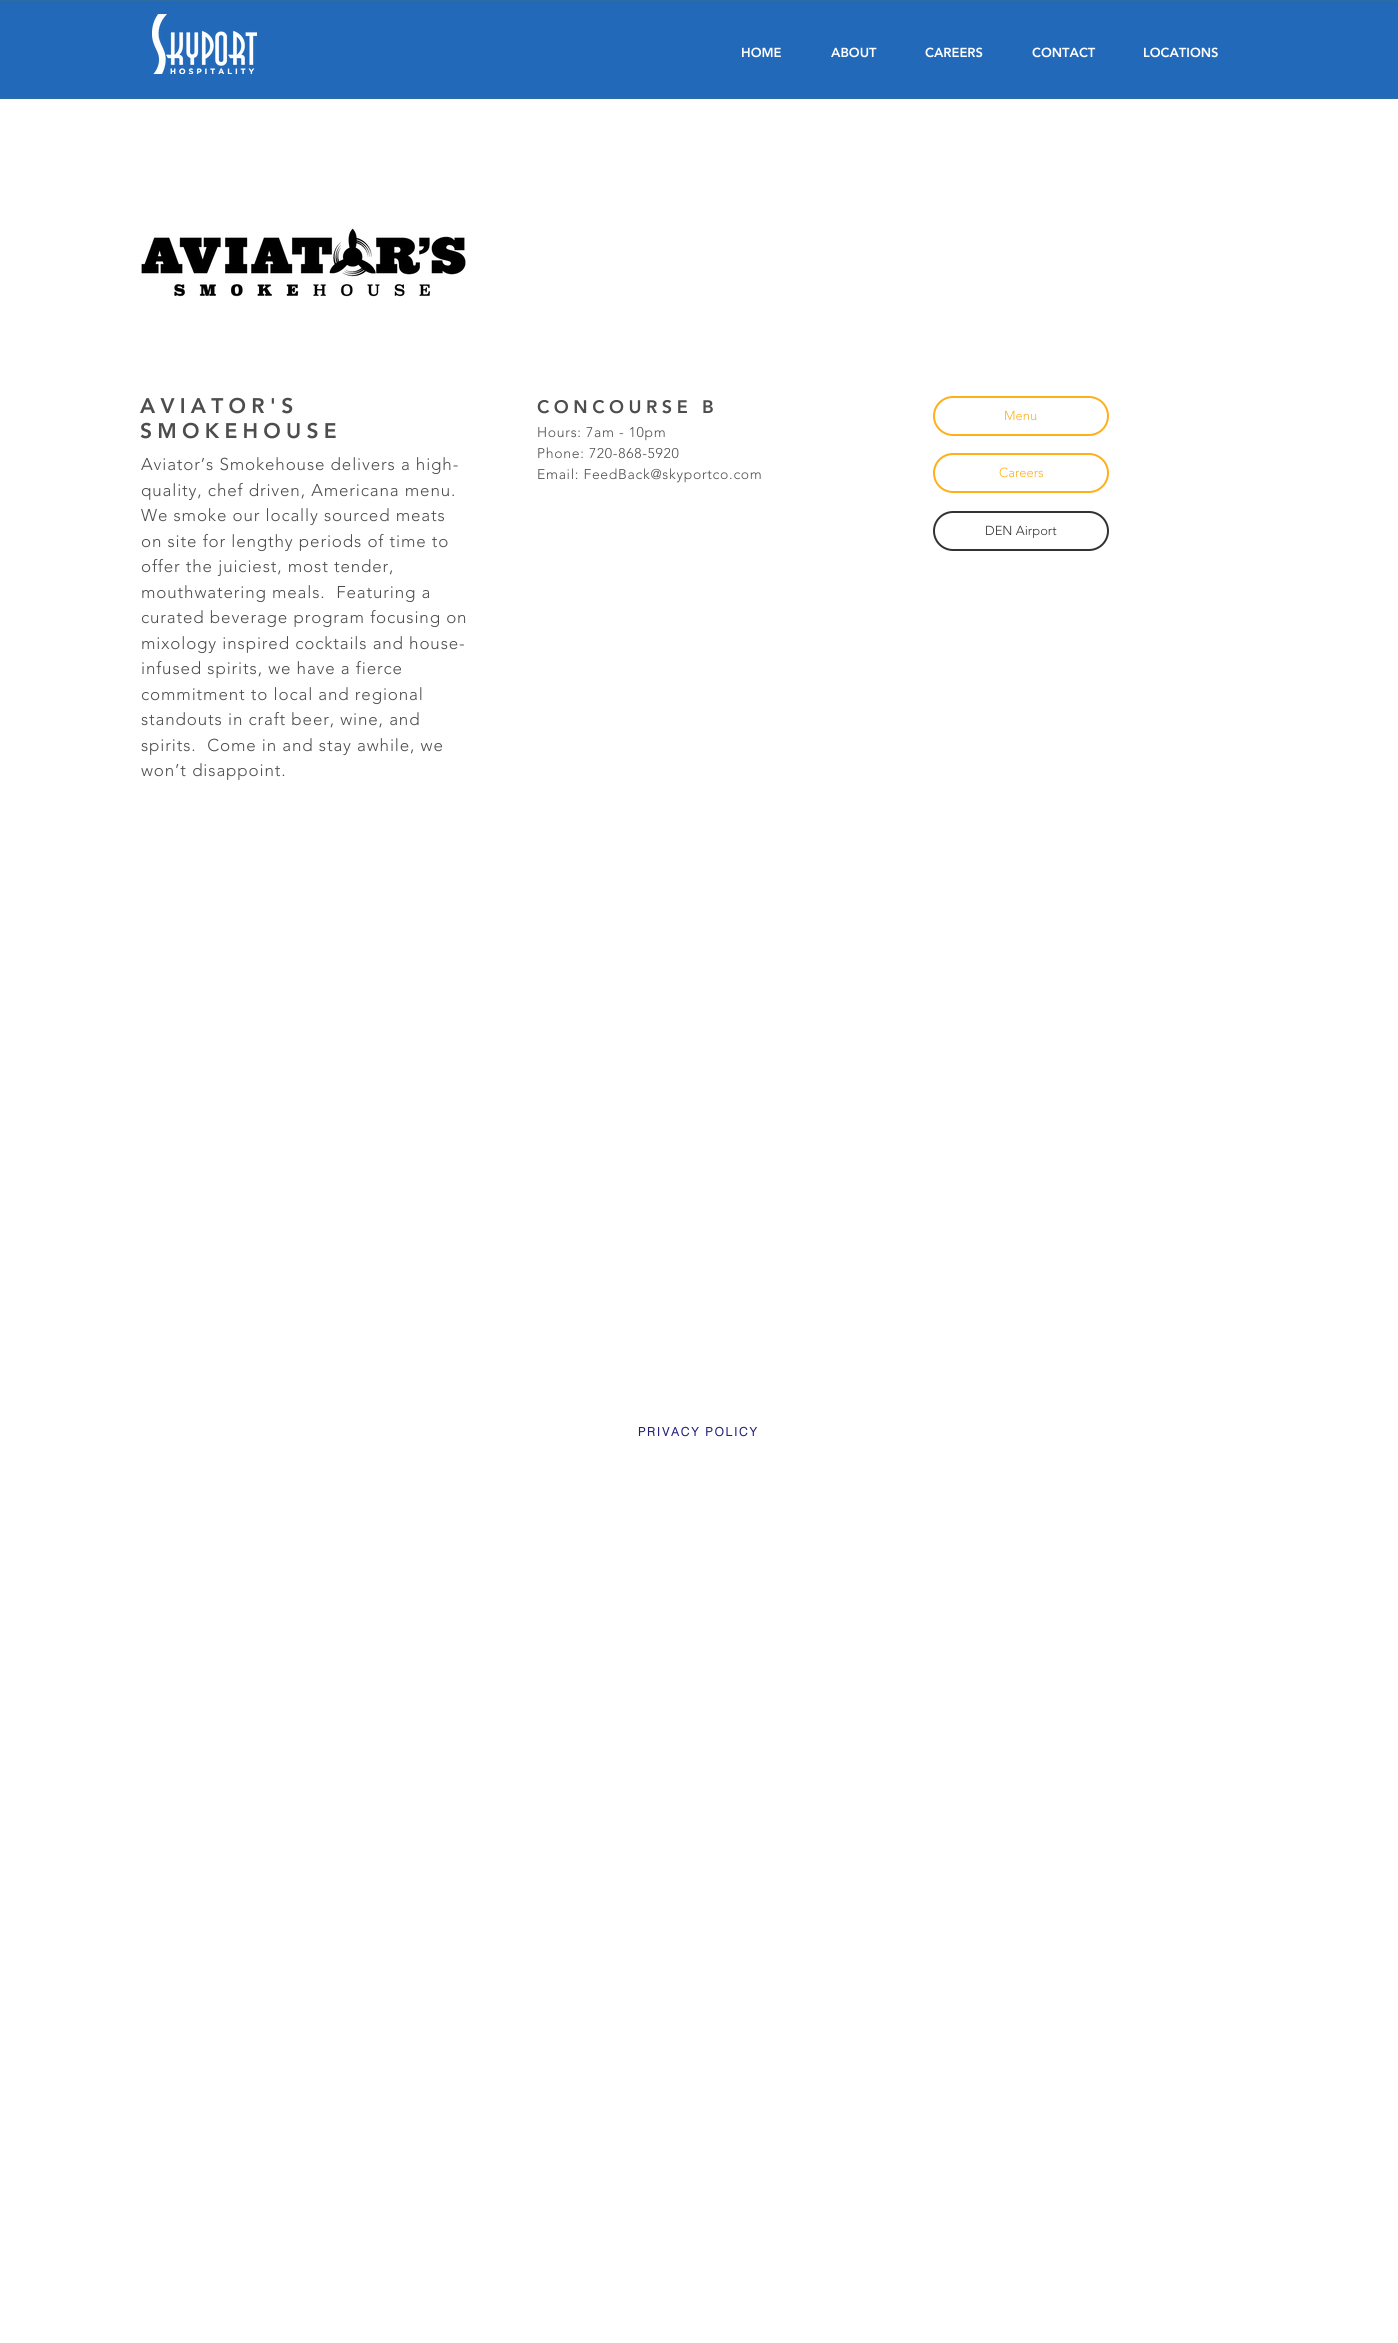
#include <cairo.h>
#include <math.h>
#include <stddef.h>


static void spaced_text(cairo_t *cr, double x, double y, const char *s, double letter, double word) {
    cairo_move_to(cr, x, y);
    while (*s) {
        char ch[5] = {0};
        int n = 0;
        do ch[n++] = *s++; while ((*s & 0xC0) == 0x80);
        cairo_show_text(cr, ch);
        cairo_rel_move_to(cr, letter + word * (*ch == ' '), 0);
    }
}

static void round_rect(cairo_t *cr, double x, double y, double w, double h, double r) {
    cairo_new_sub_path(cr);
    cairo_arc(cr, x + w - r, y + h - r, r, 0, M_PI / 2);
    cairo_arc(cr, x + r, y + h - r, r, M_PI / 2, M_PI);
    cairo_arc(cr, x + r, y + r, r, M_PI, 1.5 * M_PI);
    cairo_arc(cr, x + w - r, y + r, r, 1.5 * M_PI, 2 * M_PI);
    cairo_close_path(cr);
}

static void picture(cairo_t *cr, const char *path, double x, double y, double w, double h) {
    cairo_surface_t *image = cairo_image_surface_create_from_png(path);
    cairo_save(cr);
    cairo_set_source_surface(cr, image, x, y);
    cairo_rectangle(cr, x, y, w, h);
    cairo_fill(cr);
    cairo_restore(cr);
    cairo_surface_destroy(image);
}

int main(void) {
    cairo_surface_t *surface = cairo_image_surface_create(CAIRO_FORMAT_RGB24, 1398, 2343);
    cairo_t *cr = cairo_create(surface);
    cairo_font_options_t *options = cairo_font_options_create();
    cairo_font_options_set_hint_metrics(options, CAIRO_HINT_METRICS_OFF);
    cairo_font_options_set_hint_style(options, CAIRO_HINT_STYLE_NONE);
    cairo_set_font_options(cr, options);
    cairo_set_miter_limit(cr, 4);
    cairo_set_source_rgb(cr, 1, 1, 1);
    cairo_paint(cr);
    cairo_set_source_rgb(cr, 0.169, 0.424, 0.639);
    cairo_rectangle(cr, 0, 0, 1398, 99);
    cairo_fill(cr);
    cairo_set_source_rgb(cr, 0.137, 0.412, 0.729);
    cairo_rectangle(cr, 0, 1, 1398, 96);
    cairo_fill(cr);
    picture(cr, "img1.png", 152, 14, 105, 60);
    cairo_select_font_face(cr, "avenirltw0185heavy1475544 Black", CAIRO_FONT_SLANT_NORMAL, CAIRO_FONT_WEIGHT_NORMAL);
    cairo_set_font_size(cr, 13);
    cairo_set_source_rgb(cr, 1, 1, 1);
    cairo_move_to(cr, 741, 57);
    cairo_show_text(cr, "HOME");
    cairo_move_to(cr, 831, 57);
    cairo_show_text(cr, "ABOUT");
    cairo_move_to(cr, 925, 57);
    cairo_show_text(cr, "CAREERS");
    cairo_move_to(cr, 1032, 57);
    cairo_show_text(cr, "CONTACT");
    cairo_move_to(cr, 1143, 57);
    cairo_show_text(cr, "LOCATIONS");
    picture(cr, "img2.png", 141, 228, 325, 69);
    cairo_set_font_size(cr, 21);
    cairo_set_source_rgb(cr, 0.302, 0.302, 0.302);
    spaced_text(cr, 140, 413, "AVIATOR'S", 5.25, 0);
    spaced_text(cr, 140, 438, "SMOKEHOUSE", 5.25, 0);
    cairo_select_font_face(cr, "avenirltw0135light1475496 Light", CAIRO_FONT_SLANT_NORMAL, CAIRO_FONT_WEIGHT_NORMAL);
    cairo_set_font_size(cr, 17);
    spaced_text(cr, 141, 470, "Aviator’s Smokehouse delivers a high-", 0.85, 0);
    spaced_text(cr, 141, 496, "quality, chef driven, Americana menu.", 0.85, 0);
    spaced_text(cr, 141, 521, "We smoke our locally sourced meats", 0.85, 0);
    spaced_text(cr, 141, 547, "on site for lengthy periods of time to", 0.85, 0);
    spaced_text(cr, 141, 572, "offer the juiciest, most tender,", 0.85, 0);
    spaced_text(cr, 141, 598, "mouthwatering meals.  Featuring a", 0.85, 0);
    spaced_text(cr, 141, 623, "curated beverage program focusing on", 0.85, 0);
    spaced_text(cr, 141, 649, "mixology inspired cocktails and house-", 0.85, 0);
    spaced_text(cr, 141, 674, "infused spirits, we have a fierce", 0.85, 0);
    spaced_text(cr, 141, 700, "commitment to local and regional", 0.85, 0);
    spaced_text(cr, 141, 725, "standouts in craft beer, wine, and", 0.85, 0);
    spaced_text(cr, 141, 751, "spirits.  Come in and stay awhile, we", 0.85, 0);
    spaced_text(cr, 141, 776, "won’t disappoint.", 0.85, 0);
    cairo_select_font_face(cr, "avenirltw0185heavy1475544 Black", CAIRO_FONT_SLANT_NORMAL, CAIRO_FONT_WEIGHT_NORMAL);
    cairo_set_font_size(cr, 18);
    spaced_text(cr, 537, 413, "CONCOURSE B", 4.5, 0);
    cairo_select_font_face(cr, "avenirltw0135light1475496 Light", CAIRO_FONT_SLANT_NORMAL, CAIRO_FONT_WEIGHT_NORMAL);
    cairo_set_font_size(cr, 14);
    spaced_text(cr, 537, 437, "Hours: 7am - 10pm", 0.7, 0);
    spaced_text(cr, 537, 458, "Phone: 720-868-5920", 0.7, 0);
    spaced_text(cr, 537, 479, "Email: FeedBack@skyportco.com", 0.7, 0);
    round_rect(cr, 934, 397, 174, 38, 19);
    cairo_set_source_rgb(cr, 1, 0.686, 0.098);
    cairo_stroke(cr);
    cairo_set_font_size(cr, 13);
    cairo_move_to(cr, 1004, 420);
    cairo_show_text(cr, "Menu");
    round_rect(cr, 934, 454, 174, 38, 19);
    cairo_stroke(cr);
    cairo_move_to(cr, 999, 477);
    cairo_show_text(cr, "Careers");
    round_rect(cr, 934, 512, 174, 38, 19);
    cairo_set_source_rgb(cr, 0.196, 0.196, 0.196);
    cairo_stroke(cr);
    cairo_move_to(cr, 985, 535);
    cairo_show_text(cr, "DEN Airport");
    cairo_select_font_face(cr, "helvetica", CAIRO_FONT_SLANT_NORMAL, CAIRO_FONT_WEIGHT_BOLD);
    cairo_set_font_size(cr, 12);
    cairo_set_source_rgb(cr, 0.133, 0.122, 0.482);
    spaced_text(cr, 638, 1436, "PRIVACY POLICY", 1.75, 0);
    cairo_surface_write_to_png(surface, "page.png");
    cairo_font_options_destroy(options);
    cairo_destroy(cr);
    cairo_surface_destroy(surface);
    return 0;
}
